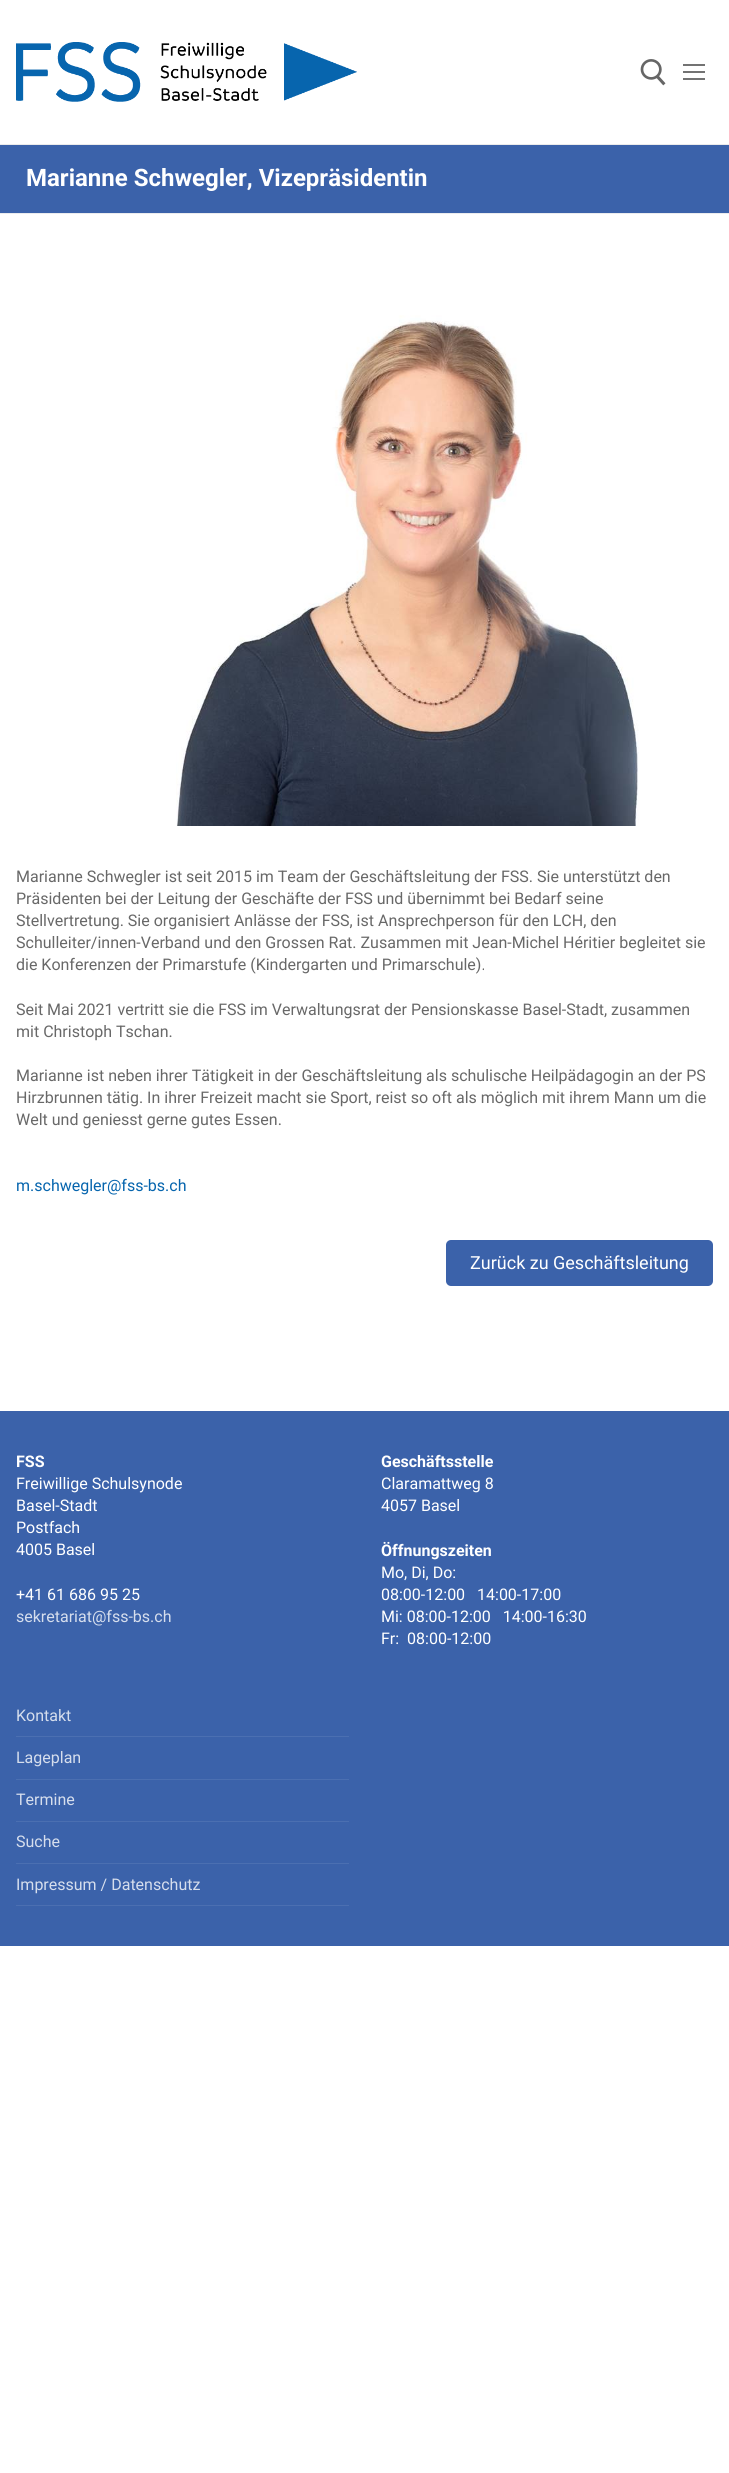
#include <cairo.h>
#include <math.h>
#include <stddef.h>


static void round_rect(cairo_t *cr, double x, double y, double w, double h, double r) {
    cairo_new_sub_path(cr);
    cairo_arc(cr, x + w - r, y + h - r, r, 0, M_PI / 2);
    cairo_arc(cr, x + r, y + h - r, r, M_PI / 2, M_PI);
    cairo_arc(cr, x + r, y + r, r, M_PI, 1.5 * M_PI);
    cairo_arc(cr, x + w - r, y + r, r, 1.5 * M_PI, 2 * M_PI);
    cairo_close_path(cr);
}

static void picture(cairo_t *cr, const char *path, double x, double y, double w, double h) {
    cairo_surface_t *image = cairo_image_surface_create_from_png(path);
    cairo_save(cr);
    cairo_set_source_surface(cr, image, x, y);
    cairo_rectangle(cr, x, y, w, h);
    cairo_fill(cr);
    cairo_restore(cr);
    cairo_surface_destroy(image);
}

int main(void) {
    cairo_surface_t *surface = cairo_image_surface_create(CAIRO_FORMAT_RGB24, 729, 2473);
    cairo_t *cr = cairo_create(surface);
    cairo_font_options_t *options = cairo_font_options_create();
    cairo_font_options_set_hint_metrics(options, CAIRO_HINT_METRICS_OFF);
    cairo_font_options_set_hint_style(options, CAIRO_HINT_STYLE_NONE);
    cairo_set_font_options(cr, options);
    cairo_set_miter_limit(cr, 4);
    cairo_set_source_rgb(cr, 1, 1, 1);
    cairo_paint(cr);
    cairo_set_source_rgb(cr, 0.918, 0.918, 0.918);
    cairo_rectangle(cr, 0, 144, 729, 1);
    cairo_fill(cr);
    picture(cr, "img1.png", 16, 42, 341, 60);
    picture(cr, "img2.png", 640, 59, 26, 27);
    cairo_set_source_rgb(cr, 0.451, 0.451, 0.451);
    cairo_rectangle(cr, 683, 71, 22, 2);
    cairo_fill(cr);
    cairo_rectangle(cr, 683, 64, 22, 2);
    cairo_fill(cr);
    cairo_rectangle(cr, 683, 78, 22, 2);
    cairo_fill(cr);
    cairo_set_source_rgb(cr, 0.231, 0.384, 0.667);
    cairo_rectangle(cr, 0, 145, 729, 68);
    cairo_fill(cr);
    cairo_set_source_rgb(cr, 0.918, 0.925, 0.933);
    cairo_rectangle(cr, 0, 213, 729, 1);
    cairo_fill(cr);
    cairo_select_font_face(cr, "Roboto", CAIRO_FONT_SLANT_NORMAL, CAIRO_FONT_WEIGHT_BOLD);
    cairo_set_font_size(cr, 24);
    cairo_set_source_rgb(cr, 1, 1, 1);
    cairo_move_to(cr, 26, 186);
    cairo_show_text(cr, "Marianne Schwegler, Vizepräsidentin");
    picture(cr, "img3.png", 176, 315, 463, 511);
    cairo_select_font_face(cr, "Roboto", CAIRO_FONT_SLANT_NORMAL, CAIRO_FONT_WEIGHT_NORMAL);
    cairo_set_font_size(cr, 16);
    cairo_set_source_rgb(cr, 0.408, 0.408, 0.408);
    cairo_move_to(cr, 16, 882);
    cairo_show_text(cr, "Marianne Schwegler ist seit 2015 im Team der Geschäftsleitung der FSS. Sie unterstützt den");
    cairo_move_to(cr, 16, 904);
    cairo_show_text(cr, "Präsidenten bei der Leitung der Geschäfte der FSS und übernimmt bei Bedarf seine");
    cairo_move_to(cr, 16, 926);
    cairo_show_text(cr, "Stellvertretung. Sie organisiert Anlässe der FSS, ist Ansprechperson für den LCH, den");
    cairo_move_to(cr, 16, 948);
    cairo_show_text(cr, "Schulleiter/innen-Verband und den Grossen Rat. Zusammen mit Jean-Michel Héritier begleitet sie");
    cairo_move_to(cr, 16, 970);
    cairo_show_text(cr, "die Konferenzen der Primarstufe (Kindergarten und Primarschule).");
    cairo_move_to(cr, 16, 1015);
    cairo_show_text(cr, "Seit Mai 2021 vertritt sie die FSS im Verwaltungsrat der Pensionskasse Basel-Stadt, zusammen");
    cairo_move_to(cr, 16, 1037);
    cairo_show_text(cr, "mit Christoph Tschan.");
    cairo_move_to(cr, 16, 1081);
    cairo_show_text(cr, "Marianne ist neben ihrer Tätigkeit in der Geschäftsleitung als schulische Heilpädagogin an der PS");
    cairo_move_to(cr, 16, 1103);
    cairo_show_text(cr, "Hirzbrunnen tätig. In ihrer Freizeit macht sie Sport, reist so oft als möglich mit ihrem Mann um die");
    cairo_move_to(cr, 16, 1125);
    cairo_show_text(cr, "Welt und geniesst gerne gutes Essen.");
    cairo_set_source_rgb(cr, 0.027, 0.396, 0.682);
    cairo_move_to(cr, 16, 1191);
    cairo_show_text(cr, "m.schwegler@fss-bs.ch");
    cairo_set_source_rgb(cr, 0.231, 0.384, 0.667);
    round_rect(cr, 446, 1240, 267, 46, 5);
    cairo_fill(cr);
    cairo_set_font_size(cr, 18);
    cairo_set_source_rgb(cr, 1, 1, 1);
    cairo_move_to(cr, 470, 1269);
    cairo_show_text(cr, "Zurück zu Geschäftsleitung");
    cairo_set_source_rgb(cr, 0.231, 0.384, 0.667);
    cairo_rectangle(cr, 0, 1411, 729, 535);
    cairo_fill(cr);
    cairo_select_font_face(cr, "Roboto", CAIRO_FONT_SLANT_NORMAL, CAIRO_FONT_WEIGHT_BOLD);
    cairo_set_font_size(cr, 16);
    cairo_set_source_rgb(cr, 1, 1, 1);
    cairo_move_to(cr, 16, 1467);
    cairo_show_text(cr, "FSS");
    cairo_select_font_face(cr, "Roboto", CAIRO_FONT_SLANT_NORMAL, CAIRO_FONT_WEIGHT_NORMAL);
    cairo_move_to(cr, 16, 1489);
    cairo_show_text(cr, "Freiwillige Schulsynode");
    cairo_move_to(cr, 16, 1511);
    cairo_show_text(cr, "Basel-Stadt");
    cairo_move_to(cr, 16, 1533);
    cairo_show_text(cr, "Postfach");
    cairo_move_to(cr, 16, 1555);
    cairo_show_text(cr, "4005 Basel");
    cairo_move_to(cr, 16, 1600);
    cairo_show_text(cr, "+41 61 686 95 25");
    cairo_set_source_rgb(cr, 0.839, 0.871, 0.929);
    cairo_move_to(cr, 16, 1622);
    cairo_show_text(cr, "sekretariat@fss-bs.ch");
    cairo_select_font_face(cr, "Roboto", CAIRO_FONT_SLANT_NORMAL, CAIRO_FONT_WEIGHT_BOLD);
    cairo_set_source_rgb(cr, 1, 1, 1);
    cairo_move_to(cr, 381, 1467);
    cairo_show_text(cr, "Geschäftsstelle");
    cairo_select_font_face(cr, "Roboto", CAIRO_FONT_SLANT_NORMAL, CAIRO_FONT_WEIGHT_NORMAL);
    cairo_move_to(cr, 381, 1489);
    cairo_show_text(cr, "Claramattweg 8");
    cairo_move_to(cr, 381, 1511);
    cairo_show_text(cr, "4057 Basel");
    cairo_select_font_face(cr, "Roboto", CAIRO_FONT_SLANT_NORMAL, CAIRO_FONT_WEIGHT_BOLD);
    cairo_move_to(cr, 381, 1556);
    cairo_show_text(cr, "Öffnungszeiten");
    cairo_select_font_face(cr, "Roboto", CAIRO_FONT_SLANT_NORMAL, CAIRO_FONT_WEIGHT_NORMAL);
    cairo_move_to(cr, 381, 1578);
    cairo_show_text(cr, "Mo, Di, Do:");
    cairo_move_to(cr, 381, 1600);
    cairo_show_text(cr, "08:00-12:00   14:00-17:00");
    cairo_move_to(cr, 381, 1622);
    cairo_show_text(cr, "Mi: 08:00-12:00   14:00-16:30");
    cairo_move_to(cr, 381, 1644);
    cairo_show_text(cr, "Fr:  08:00-12:00");
    cairo_set_source_rgb(cr, 0.294, 0.435, 0.694);
    cairo_rectangle(cr, 16, 1736, 333, 1);
    cairo_fill(cr);
    cairo_set_source_rgb(cr, 0.839, 0.871, 0.929);
    cairo_move_to(cr, 16, 1721);
    cairo_show_text(cr, "Kontakt");
    cairo_set_source_rgb(cr, 0.294, 0.435, 0.694);
    cairo_rectangle(cr, 16, 1779, 333, 1);
    cairo_fill(cr);
    cairo_set_source_rgb(cr, 0.839, 0.871, 0.929);
    cairo_move_to(cr, 16, 1763);
    cairo_show_text(cr, "Lageplan");
    cairo_set_source_rgb(cr, 0.294, 0.435, 0.694);
    cairo_rectangle(cr, 16, 1821, 333, 1);
    cairo_fill(cr);
    cairo_set_source_rgb(cr, 0.839, 0.871, 0.929);
    cairo_move_to(cr, 16, 1805);
    cairo_show_text(cr, "Termine");
    cairo_set_source_rgb(cr, 0.294, 0.435, 0.694);
    cairo_rectangle(cr, 16, 1863, 333, 1);
    cairo_fill(cr);
    cairo_set_source_rgb(cr, 0.839, 0.871, 0.929);
    cairo_move_to(cr, 16, 1847);
    cairo_show_text(cr, "Suche");
    cairo_set_source_rgb(cr, 0.294, 0.435, 0.694);
    cairo_rectangle(cr, 16, 1905, 333, 1);
    cairo_fill(cr);
    cairo_set_source_rgb(cr, 0.839, 0.871, 0.929);
    cairo_move_to(cr, 16, 1890);
    cairo_show_text(cr, "Impressum / Datenschutz");
    cairo_surface_write_to_png(surface, "page.png");
    cairo_font_options_destroy(options);
    cairo_destroy(cr);
    cairo_surface_destroy(surface);
    return 0;
}
